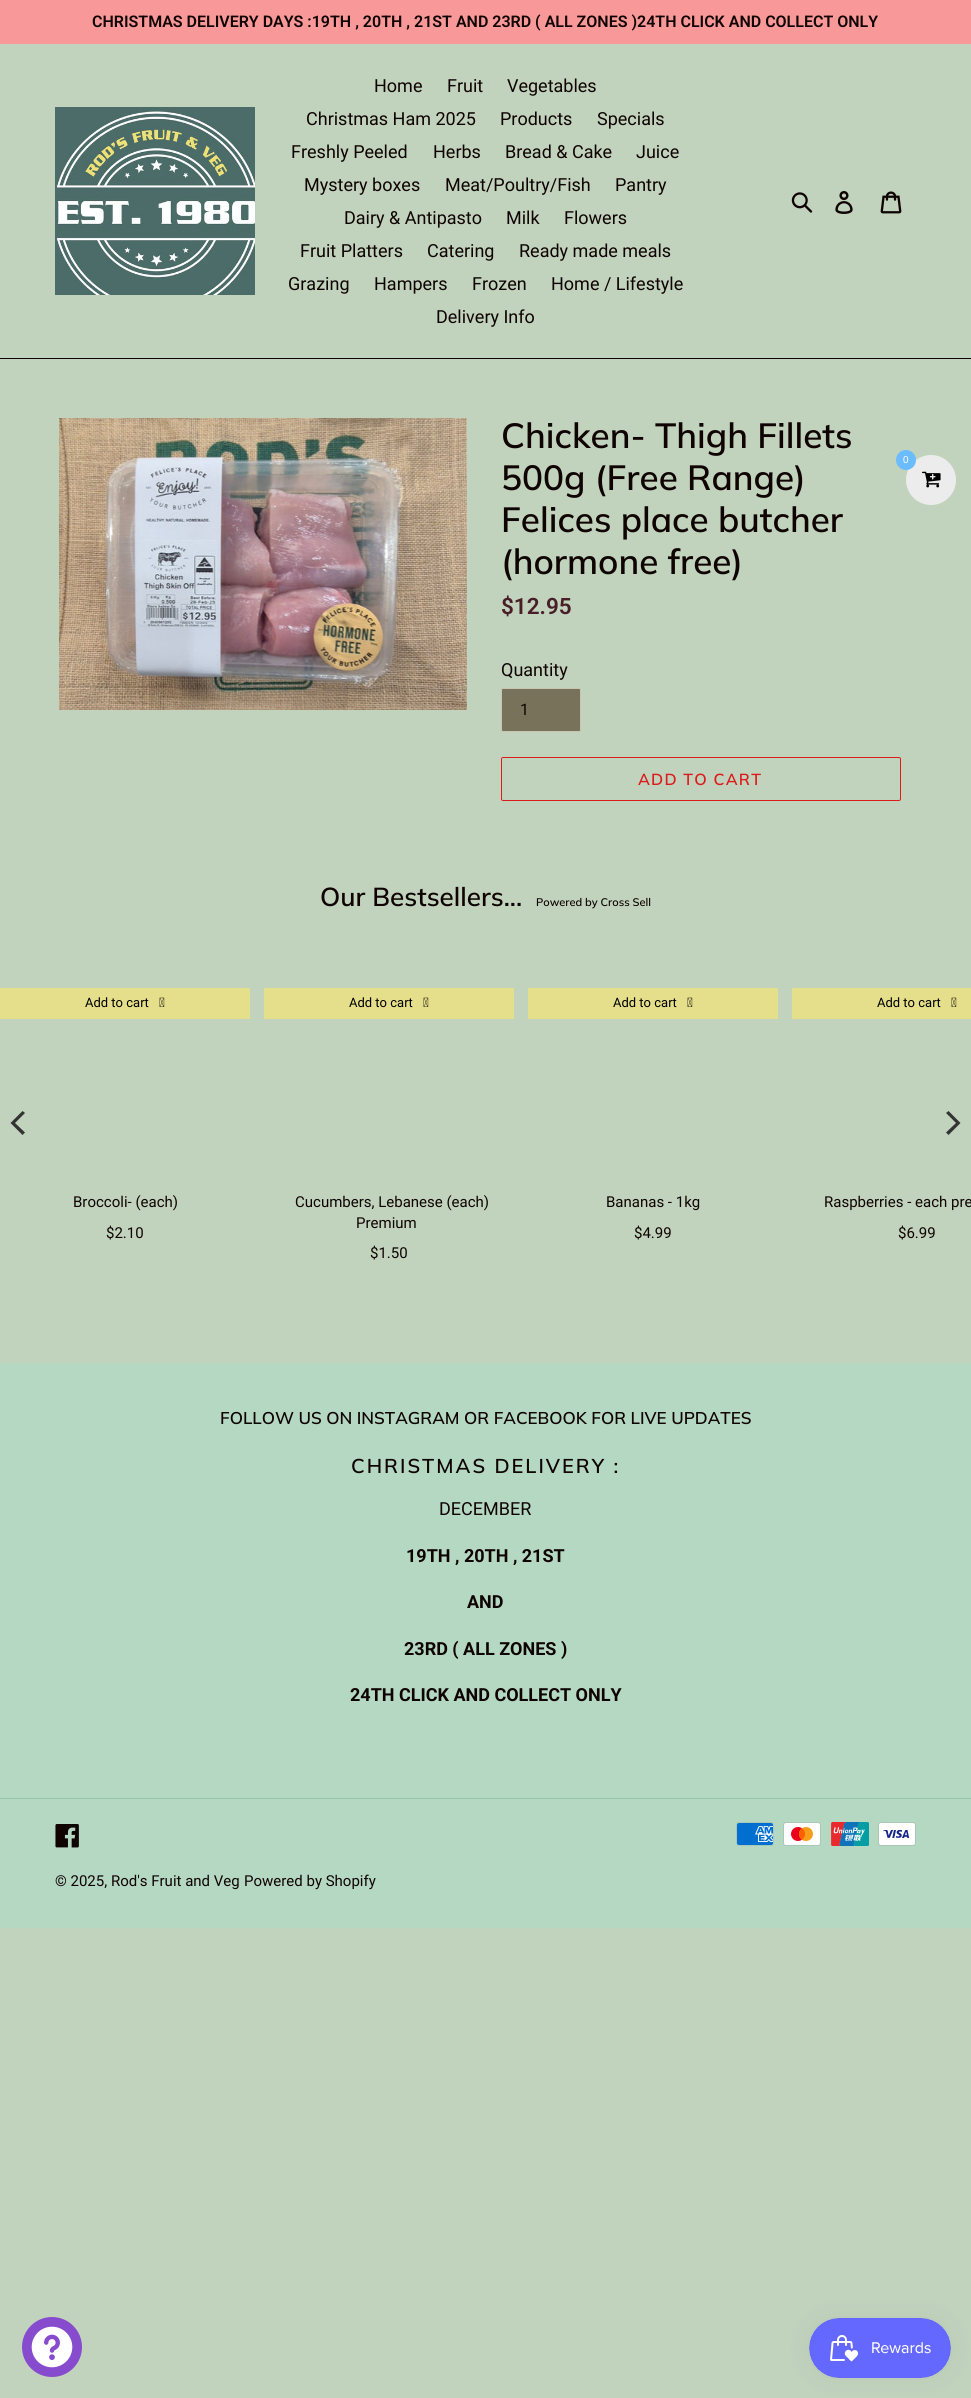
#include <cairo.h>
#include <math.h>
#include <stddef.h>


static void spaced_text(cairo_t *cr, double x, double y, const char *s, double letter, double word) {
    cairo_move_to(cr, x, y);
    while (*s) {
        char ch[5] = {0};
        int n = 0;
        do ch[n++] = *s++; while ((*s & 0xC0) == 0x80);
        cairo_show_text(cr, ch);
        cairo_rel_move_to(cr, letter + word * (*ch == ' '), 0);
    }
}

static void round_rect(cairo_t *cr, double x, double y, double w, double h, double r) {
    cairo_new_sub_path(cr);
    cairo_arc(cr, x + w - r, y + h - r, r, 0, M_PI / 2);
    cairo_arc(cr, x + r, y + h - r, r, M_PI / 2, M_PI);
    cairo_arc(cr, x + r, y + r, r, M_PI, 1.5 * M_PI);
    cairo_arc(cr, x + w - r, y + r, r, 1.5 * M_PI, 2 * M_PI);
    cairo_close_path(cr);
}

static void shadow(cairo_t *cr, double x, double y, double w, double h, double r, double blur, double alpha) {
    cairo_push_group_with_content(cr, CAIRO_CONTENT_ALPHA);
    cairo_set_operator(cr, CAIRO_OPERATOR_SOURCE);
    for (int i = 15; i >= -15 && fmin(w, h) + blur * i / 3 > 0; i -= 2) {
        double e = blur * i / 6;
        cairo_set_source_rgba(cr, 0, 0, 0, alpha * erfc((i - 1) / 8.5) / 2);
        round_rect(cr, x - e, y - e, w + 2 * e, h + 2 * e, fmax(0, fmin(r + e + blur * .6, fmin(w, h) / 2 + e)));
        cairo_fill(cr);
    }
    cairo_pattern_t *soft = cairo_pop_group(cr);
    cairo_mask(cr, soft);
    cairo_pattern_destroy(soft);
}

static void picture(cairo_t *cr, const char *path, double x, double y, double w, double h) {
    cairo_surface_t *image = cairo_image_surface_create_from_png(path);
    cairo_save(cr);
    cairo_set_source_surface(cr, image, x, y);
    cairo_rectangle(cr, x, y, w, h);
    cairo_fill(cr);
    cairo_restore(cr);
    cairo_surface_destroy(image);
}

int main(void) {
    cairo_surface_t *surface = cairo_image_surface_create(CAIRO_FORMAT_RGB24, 971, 2398);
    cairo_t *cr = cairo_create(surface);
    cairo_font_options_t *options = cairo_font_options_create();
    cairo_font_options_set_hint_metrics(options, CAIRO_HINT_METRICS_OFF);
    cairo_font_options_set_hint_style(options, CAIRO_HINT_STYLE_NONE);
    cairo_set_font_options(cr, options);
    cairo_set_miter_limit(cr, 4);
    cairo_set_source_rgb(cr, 0.757, 0.824, 0.741);
    cairo_paint(cr);
    cairo_set_source_rgb(cr, 0.976, 0.596, 0.596);
    cairo_rectangle(cr, 0, 0, 971, 44);
    cairo_fill(cr);
    cairo_select_font_face(cr, "Roboto SemiBold", CAIRO_FONT_SLANT_NORMAL, CAIRO_FONT_WEIGHT_NORMAL);
    cairo_set_font_size(cr, 16);
    cairo_set_source_rgb(cr, 0.059, 0.016, 0.004);
    cairo_move_to(cr, 92, 27);
    cairo_show_text(cr, "CHRISTMAS DELIVERY DAYS :19TH , 20TH , 21ST AND 23RD ( ALL ZONES )24TH CLICK AND COLLECT ONLY");
    cairo_rectangle(cr, 0, 358, 971, 1);
    cairo_fill(cr);
    picture(cr, "img1.png", 55, 107, 200, 188);
    cairo_select_font_face(cr, "Roboto", CAIRO_FONT_SLANT_NORMAL, CAIRO_FONT_WEIGHT_NORMAL);
    cairo_set_font_size(cr, 18);
    cairo_move_to(cr, 374, 92);
    cairo_show_text(cr, "Home");
    cairo_move_to(cr, 447, 92);
    cairo_show_text(cr, "Fruit");
    cairo_move_to(cr, 507, 92);
    cairo_show_text(cr, "Vegetables");
    cairo_move_to(cr, 306, 125);
    cairo_show_text(cr, "Christmas Ham 2025");
    cairo_move_to(cr, 500, 125);
    cairo_show_text(cr, "Products");
    cairo_move_to(cr, 597, 125);
    cairo_show_text(cr, "Specials");
    cairo_move_to(cr, 291, 158);
    cairo_show_text(cr, "Freshly Peeled");
    cairo_move_to(cr, 433, 158);
    cairo_show_text(cr, "Herbs");
    cairo_move_to(cr, 505, 158);
    cairo_show_text(cr, "Bread & Cake");
    cairo_move_to(cr, 636, 158);
    cairo_show_text(cr, "Juice");
    cairo_move_to(cr, 304, 191);
    cairo_show_text(cr, "Mystery boxes");
    cairo_move_to(cr, 445, 191);
    cairo_show_text(cr, "Meat/Poultry/Fish");
    cairo_move_to(cr, 615, 191);
    cairo_show_text(cr, "Pantry");
    cairo_move_to(cr, 344, 224);
    cairo_show_text(cr, "Dairy & Antipasto");
    cairo_move_to(cr, 506, 224);
    cairo_show_text(cr, "Milk");
    cairo_move_to(cr, 564, 224);
    cairo_show_text(cr, "Flowers");
    cairo_move_to(cr, 300, 257);
    cairo_show_text(cr, "Fruit Platters");
    cairo_move_to(cr, 427, 257);
    cairo_show_text(cr, "Catering");
    cairo_move_to(cr, 519, 257);
    cairo_show_text(cr, "Ready made meals");
    cairo_move_to(cr, 288, 290);
    cairo_show_text(cr, "Grazing");
    cairo_move_to(cr, 374, 290);
    cairo_show_text(cr, "Hampers");
    cairo_move_to(cr, 472, 290);
    cairo_show_text(cr, "Frozen");
    cairo_move_to(cr, 551, 290);
    cairo_show_text(cr, "Home / Lifestyle");
    cairo_move_to(cr, 436, 323);
    cairo_show_text(cr, "Delivery Info");
    picture(cr, "img2.png", 791, 192, 22, 21);
    picture(cr, "img3.png", 835, 191, 18, 23);
    picture(cr, "img4.png", 880, 191, 22, 23);
    picture(cr, "img5.png", 59, 418, 408, 292);
    cairo_select_font_face(cr, "Muli SemiBold", CAIRO_FONT_SLANT_NORMAL, CAIRO_FONT_WEIGHT_NORMAL);
    cairo_set_font_size(cr, 35);
    cairo_move_to(cr, 501, 448);
    cairo_show_text(cr, "Chicken- Thigh Fillets");
    cairo_move_to(cr, 501, 490);
    cairo_show_text(cr, "500g (Free Range)");
    cairo_move_to(cr, 501, 532);
    cairo_show_text(cr, "Felices place butcher");
    cairo_move_to(cr, 501, 574);
    cairo_show_text(cr, "(hormone free)");
    cairo_select_font_face(cr, "Roboto SemiBold", CAIRO_FONT_SLANT_NORMAL, CAIRO_FONT_WEIGHT_NORMAL);
    cairo_set_font_size(cr, 22.5);
    cairo_set_source_rgb(cr, 0.282, 0.118, 0.157);
    cairo_move_to(cr, 501, 614);
    cairo_show_text(cr, "$12.95");
    cairo_select_font_face(cr, "Roboto", CAIRO_FONT_SLANT_NORMAL, CAIRO_FONT_WEIGHT_NORMAL);
    cairo_set_font_size(cr, 18);
    cairo_set_source_rgb(cr, 0.059, 0.016, 0.004);
    cairo_move_to(cr, 501, 676);
    cairo_show_text(cr, "Quantity");
    cairo_set_source_rgb(cr, 0.471, 0.447, 0.353);
    round_rect(cr, 501.5, 688.5, 79, 43, 1.5);
    cairo_fill_preserve(cr);
    cairo_set_source_rgb(cr, 0.78, 0.776, 0.69);
    cairo_set_line_width(cr, 1);
    cairo_stroke(cr);
    cairo_set_font_size(cr, 16);
    cairo_set_source_rgb(cr, 0.059, 0.016, 0.004);
    cairo_move_to(cr, 520, 715);
    cairo_show_text(cr, "1");
    round_rect(cr, 501.5, 757.5, 399, 43, 1.5);
    cairo_set_source_rgb(cr, 0.863, 0.106, 0.106);
    cairo_stroke(cr);
    cairo_select_font_face(cr, "Muli SemiBold", CAIRO_FONT_SLANT_NORMAL, CAIRO_FONT_WEIGHT_NORMAL);
    spaced_text(cr, 638, 785, "ADD TO CART", 1.25, 0);
    cairo_set_font_size(cr, 26);
    cairo_set_source_rgb(cr, 0.059, 0.016, 0.004);
    cairo_move_to(cr, 320, 906);
    cairo_show_text(cr, "Our Bestsellers...");
    cairo_set_font_size(cr, 11);
    cairo_move_to(cr, 536, 906);
    cairo_show_text(cr, "Powered by Cross Sell");
    cairo_set_source_rgb(cr, 0.2, 0.2, 0.2);
    cairo_new_path(cr);
    cairo_move_to(cr, 10.5, 1123);
    cairo_line_to(cr, 22.5, 1135);
    cairo_line_to(cr, 25, 1132.5);
    cairo_line_to(cr, 15, 1123);
    cairo_line_to(cr, 25, 1113);
    cairo_line_to(cr, 22.5, 1111);
    cairo_close_path(cr);
    cairo_fill(cr);
    cairo_set_source_rgb(cr, 0.898, 0.871, 0.545);
    cairo_rectangle(cr, 0, 988, 250, 31);
    cairo_fill(cr);
    cairo_select_font_face(cr, "Roboto", CAIRO_FONT_SLANT_NORMAL, CAIRO_FONT_WEIGHT_NORMAL);
    cairo_set_font_size(cr, 13);
    cairo_set_source_rgb(cr, 0, 0, 0);
    cairo_move_to(cr, 85, 1007);
    cairo_show_text(cr, "Add to cart");
    picture(cr, "img6.png", 159, 997, 6, 10);
    cairo_set_font_size(cr, 15);
    cairo_set_source_rgb(cr, 0.059, 0.016, 0.004);
    cairo_move_to(cr, 73, 1207);
    cairo_show_text(cr, "Broccoli- (each)");
    cairo_move_to(cr, 106, 1238);
    cairo_show_text(cr, "$2.10");
    cairo_set_source_rgb(cr, 0.898, 0.871, 0.545);
    cairo_rectangle(cr, 264, 988, 250, 31);
    cairo_fill(cr);
    cairo_set_font_size(cr, 13);
    cairo_set_source_rgb(cr, 0, 0, 0);
    cairo_move_to(cr, 349, 1007);
    cairo_show_text(cr, "Add to cart");
    picture(cr, "img6.png", 423, 997, 6, 10);
    cairo_set_font_size(cr, 15);
    cairo_set_source_rgb(cr, 0.059, 0.016, 0.004);
    cairo_move_to(cr, 295, 1207);
    cairo_show_text(cr, "Cucumbers, Lebanese (each)");
    cairo_move_to(cr, 356, 1228);
    cairo_show_text(cr, "Premium");
    cairo_move_to(cr, 370, 1258);
    cairo_show_text(cr, "$1.50");
    cairo_set_source_rgb(cr, 0.898, 0.871, 0.545);
    cairo_rectangle(cr, 528, 988, 250, 31);
    cairo_fill(cr);
    cairo_set_font_size(cr, 13);
    cairo_set_source_rgb(cr, 0, 0, 0);
    cairo_move_to(cr, 613, 1007);
    cairo_show_text(cr, "Add to cart");
    picture(cr, "img6.png", 687, 997, 6, 10);
    cairo_set_font_size(cr, 15);
    cairo_set_source_rgb(cr, 0.059, 0.016, 0.004);
    cairo_move_to(cr, 606, 1207);
    cairo_show_text(cr, "Bananas - 1kg");
    cairo_move_to(cr, 634, 1238);
    cairo_show_text(cr, "$4.99");
    cairo_set_source_rgb(cr, 0.898, 0.871, 0.545);
    cairo_rectangle(cr, 792, 988, 179, 31);
    cairo_fill(cr);
    cairo_set_font_size(cr, 13);
    cairo_set_source_rgb(cr, 0, 0, 0);
    cairo_move_to(cr, 877, 1007);
    cairo_show_text(cr, "Add to cart");
    picture(cr, "img6.png", 951, 997, 6, 10);
    cairo_set_font_size(cr, 15);
    cairo_set_source_rgb(cr, 0.059, 0.016, 0.004);
    cairo_move_to(cr, 824, 1207);
    cairo_show_text(cr, "Raspberries - each pre");
    cairo_move_to(cr, 898, 1238);
    cairo_show_text(cr, "$6.99");
    cairo_set_source_rgb(cr, 0.2, 0.2, 0.2);
    cairo_new_path(cr);
    cairo_move_to(cr, 960.5, 1123);
    cairo_line_to(cr, 948.5, 1111);
    cairo_line_to(cr, 946, 1113);
    cairo_line_to(cr, 956, 1123);
    cairo_line_to(cr, 946, 1132.5);
    cairo_line_to(cr, 948.5, 1135);
    cairo_close_path(cr);
    cairo_fill(cr);
    cairo_set_source_rgb(cr, 0.71, 0.847, 0.765);
    cairo_rectangle(cr, 0, 1363, 971, 565);
    cairo_fill(cr);
    cairo_select_font_face(cr, "Muli SemiBold", CAIRO_FONT_SLANT_NORMAL, CAIRO_FONT_WEIGHT_NORMAL);
    cairo_set_font_size(cr, 17);
    cairo_set_source_rgb(cr, 0.059, 0.016, 0.004);
    cairo_move_to(cr, 220, 1424);
    cairo_show_text(cr, "FOLLOW US ON INSTAGRAM OR FACEBOOK FOR LIVE UPDATES");
    cairo_set_font_size(cr, 20);
    spaced_text(cr, 351, 1473, "CHRISTMAS DELIVERY :", 2, 0);
    cairo_select_font_face(cr, "Roboto", CAIRO_FONT_SLANT_NORMAL, CAIRO_FONT_WEIGHT_NORMAL);
    cairo_set_font_size(cr, 18);
    cairo_move_to(cr, 439, 1515);
    cairo_show_text(cr, "DECEMBER");
    cairo_select_font_face(cr, "Roboto", CAIRO_FONT_SLANT_NORMAL, CAIRO_FONT_WEIGHT_BOLD);
    cairo_move_to(cr, 406, 1562);
    cairo_show_text(cr, "19TH , 20TH , 21ST");
    cairo_move_to(cr, 467, 1608);
    cairo_show_text(cr, "AND");
    cairo_move_to(cr, 404, 1655);
    cairo_show_text(cr, "23RD ( ALL ZONES )");
    cairo_move_to(cr, 350, 1701);
    cairo_show_text(cr, "24TH CLICK AND COLLECT ONLY");
    cairo_set_source_rgb(cr, 0.58, 0.776, 0.659);
    cairo_rectangle(cr, 0, 1798, 971, 1);
    cairo_fill(cr);
    picture(cr, "img7.png", 55, 1824, 24, 24);
    picture(cr, "img8.png", 736, 1822, 38, 24);
    picture(cr, "img9.png", 783, 1822, 38, 24);
    picture(cr, "img10.png", 831, 1822, 38, 24);
    picture(cr, "img11.png", 878, 1822, 38, 24);
    cairo_select_font_face(cr, "Roboto", CAIRO_FONT_SLANT_NORMAL, CAIRO_FONT_WEIGHT_NORMAL);
    cairo_set_font_size(cr, 15);
    cairo_set_source_rgb(cr, 0.059, 0.016, 0.004);
    cairo_move_to(cr, 55, 1886);
    cairo_show_text(cr, "© 2025, Rod's Fruit and Veg");
    cairo_move_to(cr, 244, 1886);
    cairo_show_text(cr, "Powered by Shopify");
    cairo_set_source_rgb(cr, 0.922, 0.922, 0.922);
    cairo_new_path(cr);
    cairo_arc(cr, 931, 480, 25, 0, 2 * M_PI);
    cairo_fill(cr);
    cairo_set_source_rgb(cr, 0.42, 0.733, 1);
    cairo_arc(cr, 906, 460, 10, 0, 2 * M_PI);
    cairo_fill(cr);
    cairo_select_font_face(cr, "Arimo", CAIRO_FONT_SLANT_NORMAL, CAIRO_FONT_WEIGHT_NORMAL);
    cairo_set_font_size(cr, 10);
    cairo_set_source_rgb(cr, 1, 1, 1);
    cairo_move_to(cr, 903, 463);
    cairo_show_text(cr, "0");
    picture(cr, "img12.png", 922, 471, 19, 17);
    cairo_set_source_rgb(cr, 0.529, 0.294, 0.804);
    cairo_arc(cr, 52, 2347, 30, 0, 2 * M_PI);
    cairo_fill(cr);
    picture(cr, "img13.png", 31, 2326, 42, 42);
    cairo_set_source_rgb(cr, 0, 0, 0);
    shadow(cr, 809, 2318, 142, 60, 30, 12.5, 0.05);
    picture(cr, "img14.png", 809, 2318, 142, 60);
    cairo_surface_write_to_png(surface, "page.png");
    cairo_font_options_destroy(options);
    cairo_destroy(cr);
    cairo_surface_destroy(surface);
    return 0;
}
